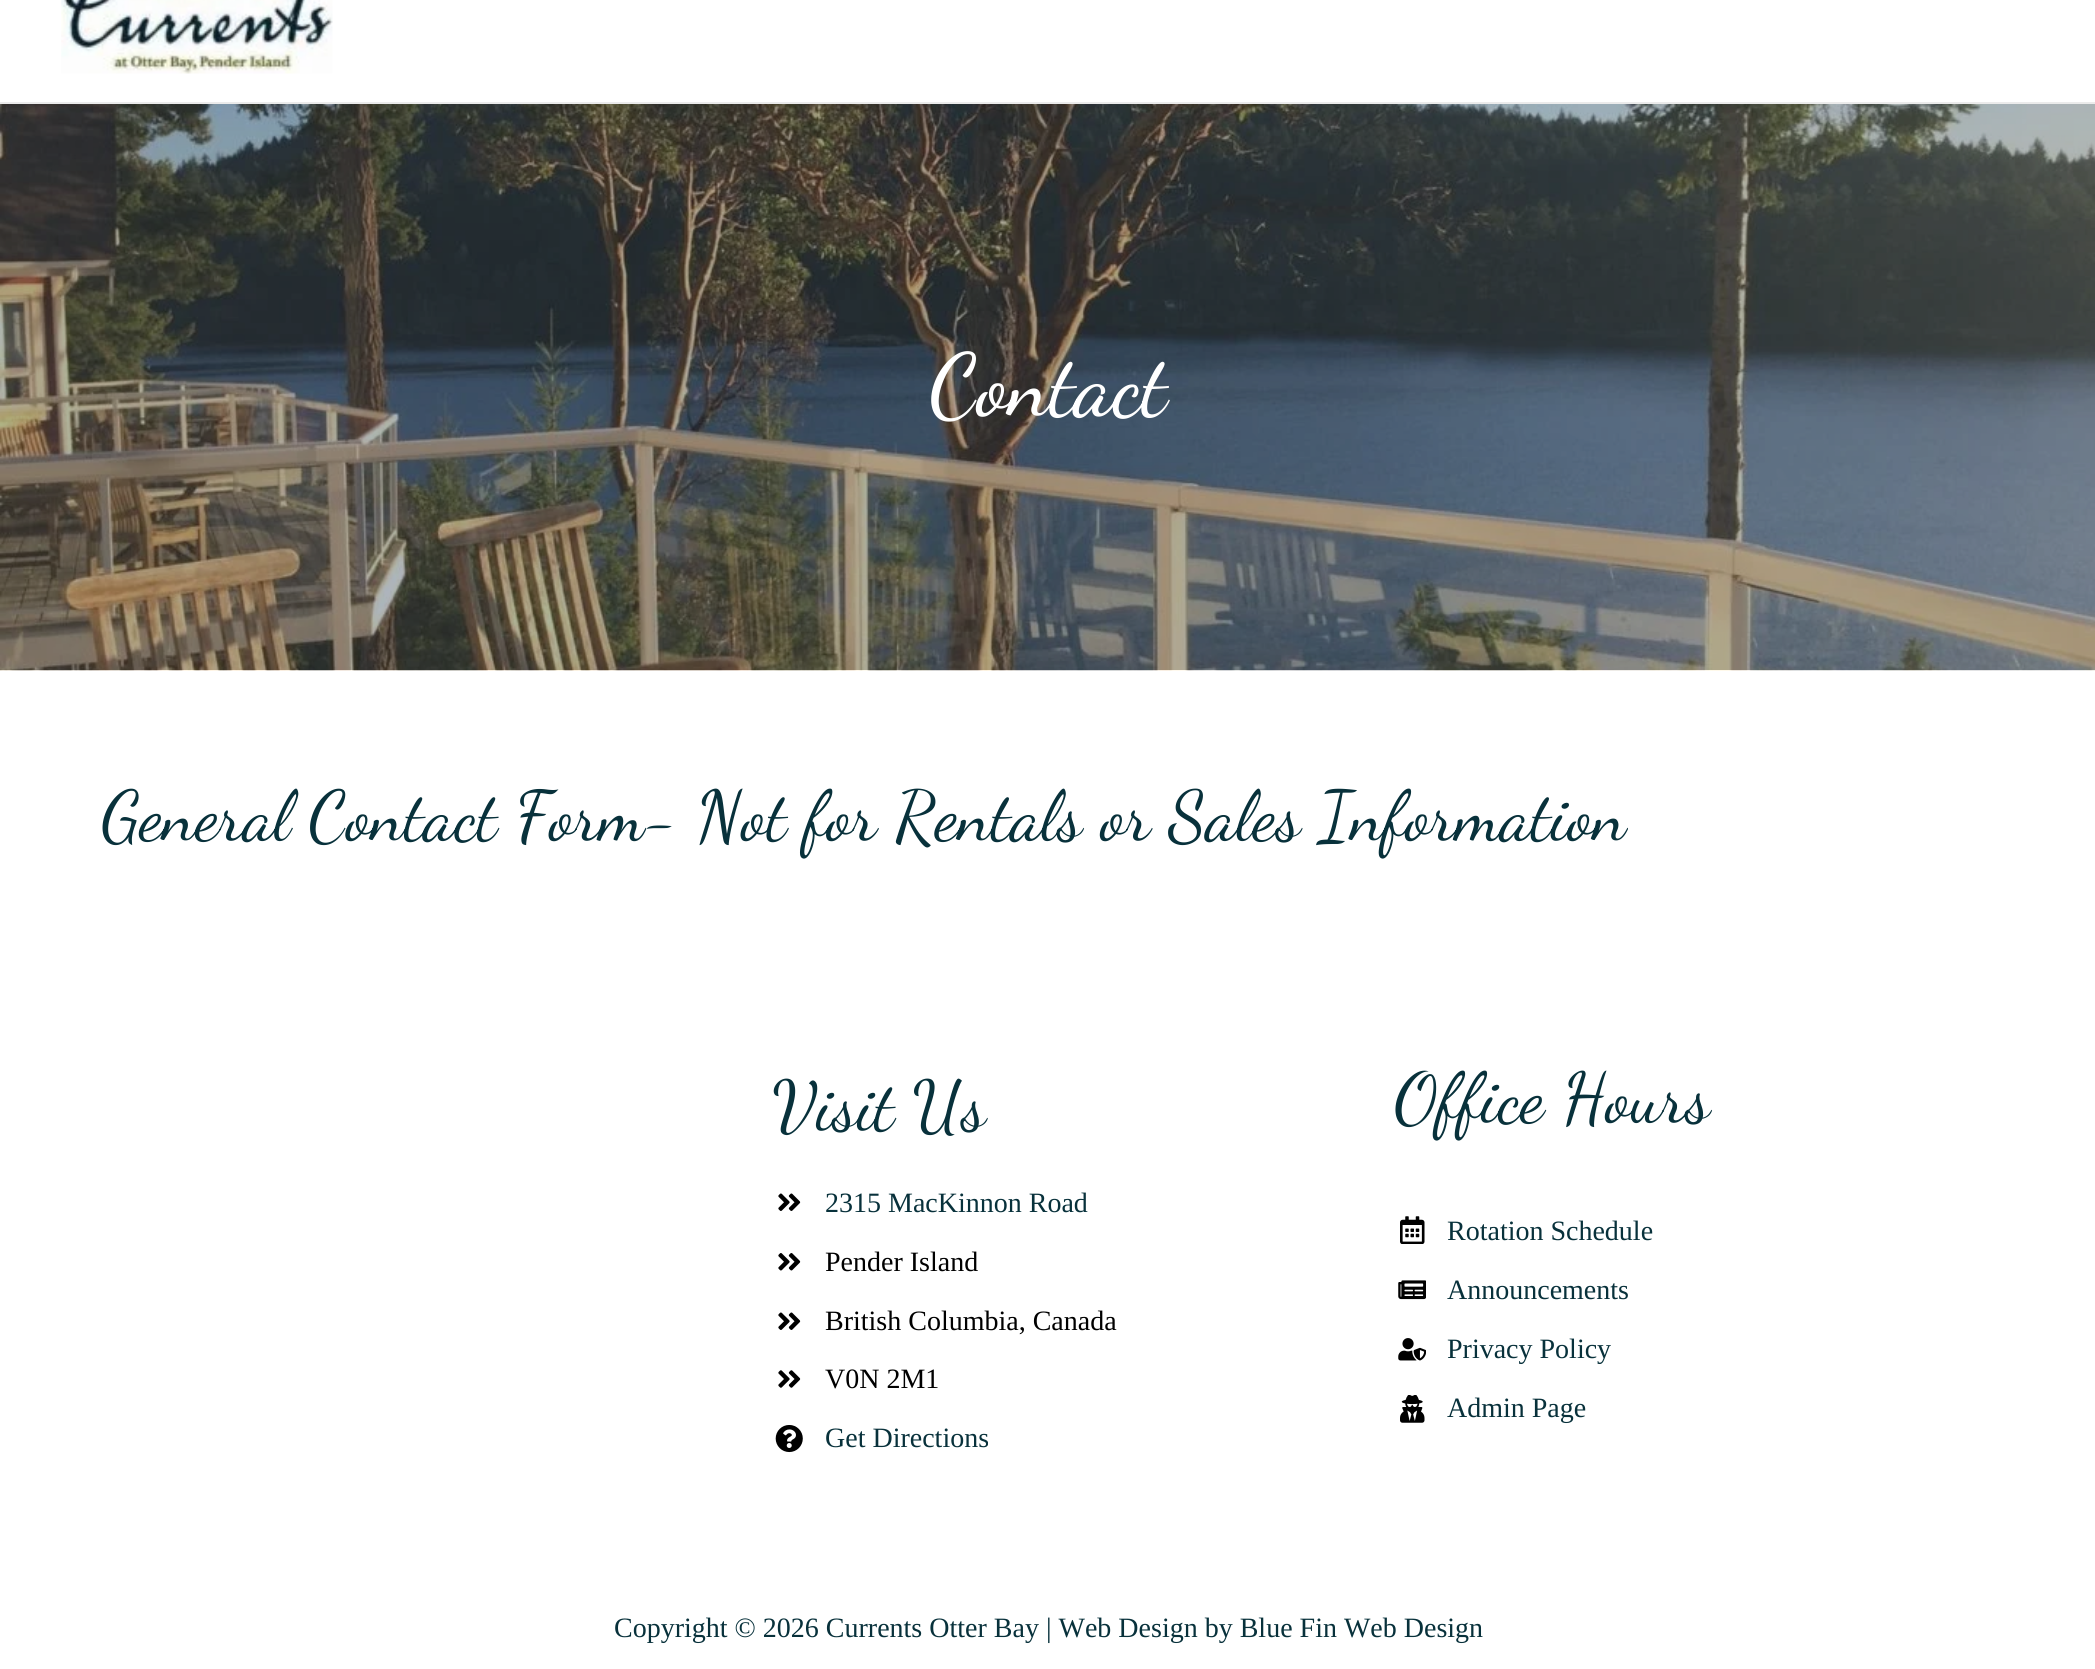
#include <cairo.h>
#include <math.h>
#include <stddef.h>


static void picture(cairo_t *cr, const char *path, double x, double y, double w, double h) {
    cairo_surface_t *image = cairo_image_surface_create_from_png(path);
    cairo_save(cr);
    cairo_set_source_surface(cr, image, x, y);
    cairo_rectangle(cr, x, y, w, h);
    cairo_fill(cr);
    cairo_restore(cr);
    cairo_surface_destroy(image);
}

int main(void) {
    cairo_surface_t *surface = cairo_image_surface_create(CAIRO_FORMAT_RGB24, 2095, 1669);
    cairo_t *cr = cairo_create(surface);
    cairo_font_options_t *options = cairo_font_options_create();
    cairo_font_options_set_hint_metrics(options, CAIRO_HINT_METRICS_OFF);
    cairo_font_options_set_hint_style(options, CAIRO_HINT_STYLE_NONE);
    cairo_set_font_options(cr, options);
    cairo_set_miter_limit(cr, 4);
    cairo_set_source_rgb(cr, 1, 1, 1);
    cairo_paint(cr);
    cairo_set_source_rgb(cr, 0.918, 0.918, 0.918);
    cairo_rectangle(cr, 0, 102, 2095, 2);
    cairo_fill(cr);
    picture(cr, "img1.png", 61, 0, 272, 74);
    picture(cr, "img2.png", 0, 104, 2095, 567);
    cairo_select_font_face(cr, "Dancing Script Medium", CAIRO_FONT_SLANT_NORMAL, CAIRO_FONT_WEIGHT_NORMAL);
    cairo_set_font_size(cr, 87.5);
    cairo_set_source_rgb(cr, 1, 1, 1);
    cairo_move_to(cr, 929, 414);
    cairo_show_text(cr, "Contact");
    cairo_select_font_face(cr, "Dancing Script", CAIRO_FONT_SLANT_NORMAL, CAIRO_FONT_WEIGHT_NORMAL);
    cairo_set_font_size(cr, 70);
    cairo_set_source_rgb(cr, 0.035, 0.192, 0.231);
    cairo_move_to(cr, 101, 839);
    cairo_show_text(cr, "General Contact Form- Not for Rentals or Sales Information");
    cairo_move_to(cr, 772, 1129);
    cairo_show_text(cr, "Visit Us");
    picture(cr, "img3.png", 778, 1193, 23, 18);
    cairo_select_font_face(cr, "Liberation Serif", CAIRO_FONT_SLANT_NORMAL, CAIRO_FONT_WEIGHT_NORMAL);
    cairo_set_font_size(cr, 28);
    cairo_move_to(cr, 825, 1212);
    cairo_show_text(cr, "2315 MacKinnon Road");
    picture(cr, "img4.png", 778, 1253, 23, 18);
    cairo_set_source_rgb(cr, 0, 0, 0);
    cairo_move_to(cr, 825, 1271);
    cairo_show_text(cr, "Pender Island");
    picture(cr, "img3.png", 778, 1312, 23, 18);
    cairo_move_to(cr, 825, 1330);
    cairo_show_text(cr, "British Columbia, Canada");
    picture(cr, "img5.png", 778, 1370, 23, 18);
    cairo_move_to(cr, 825, 1388);
    cairo_show_text(cr, "V0N 2M1");
    picture(cr, "img6.png", 775, 1425, 28, 28);
    cairo_set_source_rgb(cr, 0.035, 0.192, 0.231);
    cairo_move_to(cr, 825, 1447);
    cairo_show_text(cr, "Get Directions");
    cairo_select_font_face(cr, "Dancing Script", CAIRO_FONT_SLANT_NORMAL, CAIRO_FONT_WEIGHT_NORMAL);
    cairo_set_font_size(cr, 70);
    cairo_move_to(cr, 1394, 1121);
    cairo_show_text(cr, "Office Hours");
    picture(cr, "img7.png", 1400, 1216, 25, 28);
    cairo_select_font_face(cr, "Liberation Serif", CAIRO_FONT_SLANT_NORMAL, CAIRO_FONT_WEIGHT_NORMAL);
    cairo_set_font_size(cr, 28);
    cairo_move_to(cr, 1447, 1240);
    cairo_show_text(cr, "Rotation Schedule");
    picture(cr, "img8.png", 1398, 1280, 28, 20);
    cairo_move_to(cr, 1447, 1299);
    cairo_show_text(cr, "Announcements");
    picture(cr, "img9.png", 1398, 1338, 28, 23);
    cairo_move_to(cr, 1447, 1358);
    cairo_show_text(cr, "Privacy Policy");
    picture(cr, "img10.png", 1400, 1395, 25, 28);
    cairo_move_to(cr, 1447, 1417);
    cairo_show_text(cr, "Admin Page");
    cairo_move_to(cr, 614, 1637);
    cairo_show_text(cr, "Copyright © 2026 Currents Otter Bay | Web Design by Blue Fin Web Design");
    cairo_surface_write_to_png(surface, "page.png");
    cairo_font_options_destroy(options);
    cairo_destroy(cr);
    cairo_surface_destroy(surface);
    return 0;
}
